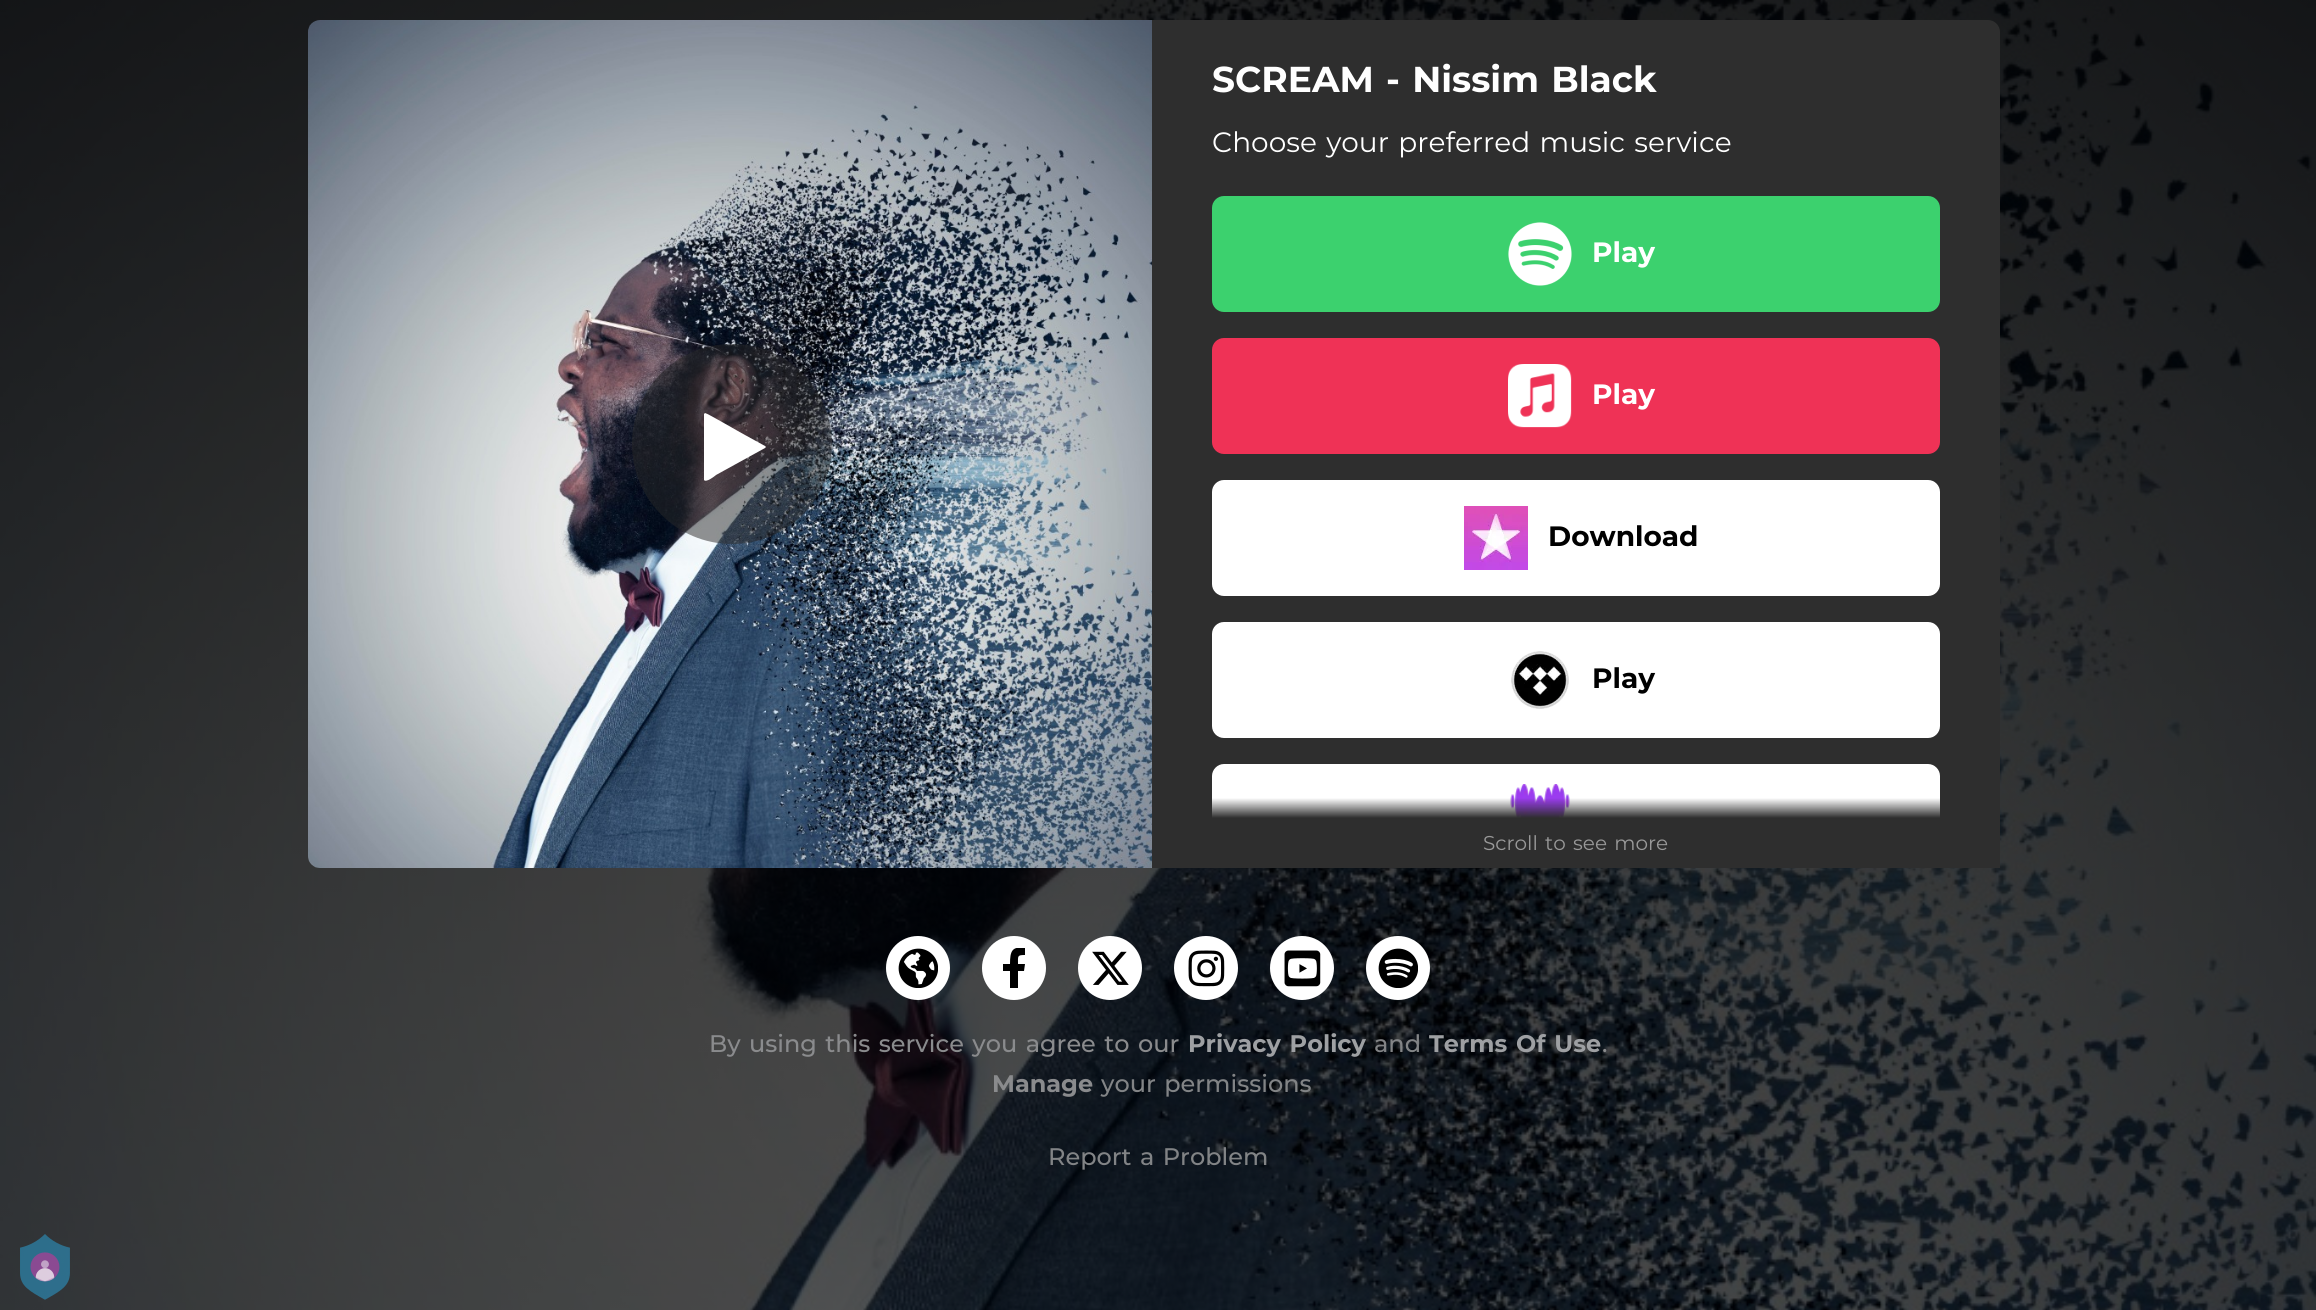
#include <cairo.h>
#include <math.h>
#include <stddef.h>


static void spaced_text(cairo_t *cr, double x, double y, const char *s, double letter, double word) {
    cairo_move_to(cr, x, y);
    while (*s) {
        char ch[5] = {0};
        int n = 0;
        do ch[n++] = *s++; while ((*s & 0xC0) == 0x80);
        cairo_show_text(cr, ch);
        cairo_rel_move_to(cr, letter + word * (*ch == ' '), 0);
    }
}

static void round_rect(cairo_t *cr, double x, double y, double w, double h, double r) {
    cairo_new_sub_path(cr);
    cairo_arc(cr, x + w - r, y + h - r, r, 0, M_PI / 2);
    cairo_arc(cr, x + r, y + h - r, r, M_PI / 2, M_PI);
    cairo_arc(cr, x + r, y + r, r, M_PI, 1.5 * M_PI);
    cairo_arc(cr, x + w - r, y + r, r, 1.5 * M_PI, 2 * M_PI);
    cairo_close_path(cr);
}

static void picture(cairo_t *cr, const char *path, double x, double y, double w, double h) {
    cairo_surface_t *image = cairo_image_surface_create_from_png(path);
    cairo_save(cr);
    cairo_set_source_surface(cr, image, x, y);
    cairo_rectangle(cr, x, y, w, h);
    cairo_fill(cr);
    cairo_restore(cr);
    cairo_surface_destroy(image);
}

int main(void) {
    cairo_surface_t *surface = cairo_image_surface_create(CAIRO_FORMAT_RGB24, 2316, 1310);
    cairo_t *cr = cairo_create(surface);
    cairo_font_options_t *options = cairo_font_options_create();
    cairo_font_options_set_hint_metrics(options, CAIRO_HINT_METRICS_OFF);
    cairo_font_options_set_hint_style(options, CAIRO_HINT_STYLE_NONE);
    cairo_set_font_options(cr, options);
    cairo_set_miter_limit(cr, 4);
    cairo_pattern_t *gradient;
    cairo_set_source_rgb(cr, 1, 1, 1);
    cairo_paint(cr);
    picture(cr, "img1.png", 0, 0, 2316, 1310);
    picture(cr, "img2.png", 308, 20, 844, 848);
    cairo_set_source_rgba(cr, 0.157, 0.157, 0.157, 0.5);
    cairo_arc(cr, 732, 444, 100, 0, 2 * M_PI);
    cairo_fill(cr);
    cairo_set_source_rgb(cr, 1, 1, 1);
    cairo_new_path(cr);
    cairo_move_to(cr, 765, 448);
    cairo_line_to(cr, 716, 475);
    cairo_curve_to(cr, 715, 476, 706, 483, 704, 480);
    cairo_line_to(cr, 704, 414);
    cairo_line_to(cr, 705, 413);
    cairo_curve_to(cr, 707, 413, 741, 433, 745, 435);
    cairo_line_to(cr, 765, 446);
    cairo_line_to(cr, 766, 447);
    cairo_line_to(cr, 765, 448);
    cairo_fill(cr);
    cairo_set_source_rgb(cr, 0.18, 0.18, 0.18);
    cairo_new_path(cr);
    cairo_move_to(cr, 1152, 20);
    cairo_line_to(cr, 1988, 20);
    cairo_curve_to(cr, 1994.5, 20, 2000, 25.5, 2000, 32);
    cairo_line_to(cr, 2000, 856);
    cairo_curve_to(cr, 2000, 862.5, 1994.5, 868, 1988, 868);
    cairo_line_to(cr, 1152, 868);
    cairo_close_path(cr);
    cairo_fill(cr);
    cairo_select_font_face(cr, "Montserrat", CAIRO_FONT_SLANT_NORMAL, CAIRO_FONT_WEIGHT_BOLD);
    cairo_set_font_size(cr, 36);
    cairo_set_source_rgb(cr, 1, 1, 1);
    spaced_text(cr, 1212, 92, "SCREAM - Nissim Black", 0, 2);
    cairo_select_font_face(cr, "Montserrat", CAIRO_FONT_SLANT_NORMAL, CAIRO_FONT_WEIGHT_NORMAL);
    cairo_set_font_size(cr, 28);
    spaced_text(cr, 1212, 152, "Choose your preferred music service", 0, 2);
    cairo_set_source_rgb(cr, 0.235, 0.82, 0.431);
    round_rect(cr, 1212, 196, 728, 116, 12);
    cairo_fill(cr);
    picture(cr, "img3.png", 1508, 222, 64, 64);
    cairo_select_font_face(cr, "Montserrat", CAIRO_FONT_SLANT_NORMAL, CAIRO_FONT_WEIGHT_BOLD);
    cairo_set_source_rgb(cr, 1, 1, 1);
    cairo_move_to(cr, 1592, 262);
    cairo_show_text(cr, "Play");
    cairo_set_source_rgb(cr, 0.937, 0.196, 0.337);
    round_rect(cr, 1212, 338, 728, 116, 12);
    cairo_fill(cr);
    picture(cr, "img4.png", 1508, 364, 64, 64);
    cairo_set_source_rgb(cr, 1, 1, 1);
    cairo_move_to(cr, 1592, 404);
    cairo_show_text(cr, "Play");
    round_rect(cr, 1212, 480, 728, 116, 12);
    cairo_fill(cr);
    picture(cr, "img5.png", 1464, 506, 64, 64);
    cairo_set_source_rgb(cr, 0, 0, 0);
    cairo_move_to(cr, 1548, 546);
    cairo_show_text(cr, "Download");
    cairo_set_source_rgb(cr, 1, 1, 1);
    round_rect(cr, 1212, 622, 728, 116, 12);
    cairo_fill(cr);
    picture(cr, "img6.png", 1511, 651, 58, 58);
    cairo_set_source_rgb(cr, 0, 0, 0);
    cairo_move_to(cr, 1592, 688);
    cairo_show_text(cr, "Play");
    cairo_set_source_rgb(cr, 1, 1, 1);
    cairo_new_path(cr);
    cairo_move_to(cr, 1224, 764);
    cairo_line_to(cr, 1928, 764);
    cairo_curve_to(cr, 1934.5, 764, 1940, 769.5, 1940, 776);
    cairo_line_to(cr, 1940, 868);
    cairo_line_to(cr, 1212, 868);
    cairo_line_to(cr, 1212, 776);
    cairo_curve_to(cr, 1212, 769.5, 1217.5, 764, 1224, 764);
    cairo_close_path(cr);
    cairo_fill(cr);
    picture(cr, "img7.png", 1510, 784, 60, 34);
    gradient = cairo_pattern_create_linear(1576, 818, 1576, 798);
    cairo_pattern_add_color_stop_rgba(gradient, 0, 0.18, 0.18, 0.18, 1);
    cairo_pattern_add_color_stop_rgba(gradient, 1, 0.18, 0.18, 0.18, 0);
    cairo_set_source(cr, gradient);
    cairo_pattern_destroy(gradient);
    cairo_rectangle(cr, 1212, 798, 728, 20);
    cairo_fill(cr);
    cairo_set_source_rgb(cr, 0.18, 0.18, 0.18);
    cairo_rectangle(cr, 1212, 818, 788, 50);
    cairo_fill(cr);
    cairo_select_font_face(cr, "Montserrat", CAIRO_FONT_SLANT_NORMAL, CAIRO_FONT_WEIGHT_NORMAL);
    cairo_set_font_size(cr, 20);
    cairo_set_source_rgb(cr, 0.6, 0.6, 0.6);
    spaced_text(cr, 1483, 850, "Scroll to see more", 0, 2);
    cairo_set_source_rgb(cr, 1, 1, 1);
    cairo_new_path(cr);
    cairo_arc(cr, 918, 968, 32, 0, 2 * M_PI);
    cairo_fill(cr);
    picture(cr, "img8.png", 898, 948, 40, 40);
    cairo_arc(cr, 1014, 968, 32, 0, 2 * M_PI);
    cairo_fill(cr);
    cairo_save(cr);
    cairo_rectangle(cr, 994, 948, 40, 40);
    cairo_clip(cr);
    cairo_set_source_rgb(cr, 0, 0, 0);
    cairo_new_path(cr);
    cairo_move_to(cr, 1024, 971);
    cairo_line_to(cr, 1025, 964);
    cairo_line_to(cr, 1018, 964);
    cairo_curve_to(cr, 1018, 956, 1017, 955, 1025, 955);
    cairo_line_to(cr, 1025, 948);
    cairo_curve_to(cr, 1012, 946, 1010, 951, 1010, 964);
    cairo_line_to(cr, 1003, 964);
    cairo_line_to(cr, 1003, 971);
    cairo_line_to(cr, 1010, 971);
    cairo_line_to(cr, 1010, 989);
    cairo_line_to(cr, 1018, 989);
    cairo_line_to(cr, 1018, 971);
    cairo_close_path(cr);
    cairo_fill(cr);
    cairo_restore(cr);
    cairo_arc(cr, 1110, 968, 32, 0, 2 * M_PI);
    cairo_fill(cr);
    picture(cr, "img9.png", 1092, 951, 37, 34);
    cairo_arc(cr, 1206, 968, 32, 0, 2 * M_PI);
    cairo_fill(cr);
    picture(cr, "img10.png", 1188, 950, 37, 37);
    cairo_arc(cr, 1302, 968, 32, 0, 2 * M_PI);
    cairo_fill(cr);
    picture(cr, "img11.png", 1284, 950, 37, 37);
    cairo_arc(cr, 1398, 968, 32, 0, 2 * M_PI);
    cairo_fill(cr);
    picture(cr, "img12.png", 1378, 948, 40, 40);
    cairo_select_font_face(cr, "Montserrat Medium", CAIRO_FONT_SLANT_NORMAL, CAIRO_FONT_WEIGHT_NORMAL);
    cairo_set_font_size(cr, 24);
    cairo_set_source_rgb(cr, 0.541, 0.545, 0.553);
    spaced_text(cr, 709, 1052, "By using this service you agree to our", 0, 2);
    cairo_select_font_face(cr, "Montserrat", CAIRO_FONT_SLANT_NORMAL, CAIRO_FONT_WEIGHT_BOLD);
    cairo_set_source_rgb(cr, 0.62, 0.627, 0.639);
    spaced_text(cr, 1188, 1052, "Privacy Policy", 0, 2);
    cairo_select_font_face(cr, "Montserrat Medium", CAIRO_FONT_SLANT_NORMAL, CAIRO_FONT_WEIGHT_NORMAL);
    cairo_set_source_rgb(cr, 0.51, 0.518, 0.525);
    cairo_move_to(cr, 1374, 1052);
    cairo_show_text(cr, "and");
    cairo_select_font_face(cr, "Montserrat", CAIRO_FONT_SLANT_NORMAL, CAIRO_FONT_WEIGHT_BOLD);
    cairo_set_source_rgb(cr, 0.62, 0.627, 0.639);
    spaced_text(cr, 1429, 1052, "Terms Of Use", 0, 2);
    cairo_select_font_face(cr, "Montserrat Medium", CAIRO_FONT_SLANT_NORMAL, CAIRO_FONT_WEIGHT_NORMAL);
    cairo_set_source_rgb(cr, 0.541, 0.545, 0.553);
    cairo_move_to(cr, 1602, 1052);
    cairo_show_text(cr, ".");
    cairo_select_font_face(cr, "Montserrat", CAIRO_FONT_SLANT_NORMAL, CAIRO_FONT_WEIGHT_BOLD);
    cairo_move_to(cr, 992, 1092);
    cairo_show_text(cr, "Manage");
    cairo_select_font_face(cr, "Montserrat Medium", CAIRO_FONT_SLANT_NORMAL, CAIRO_FONT_WEIGHT_NORMAL);
    cairo_set_source_rgb(cr, 0.51, 0.518, 0.525);
    spaced_text(cr, 1101, 1092, "your permissions", 0, 2);
    spaced_text(cr, 1048, 1165, "Report a Problem", 0, 2);
    picture(cr, "img13.png", 20, 1234, 50, 66);
    cairo_surface_write_to_png(surface, "page.png");
    cairo_font_options_destroy(options);
    cairo_destroy(cr);
    cairo_surface_destroy(surface);
    return 0;
}
